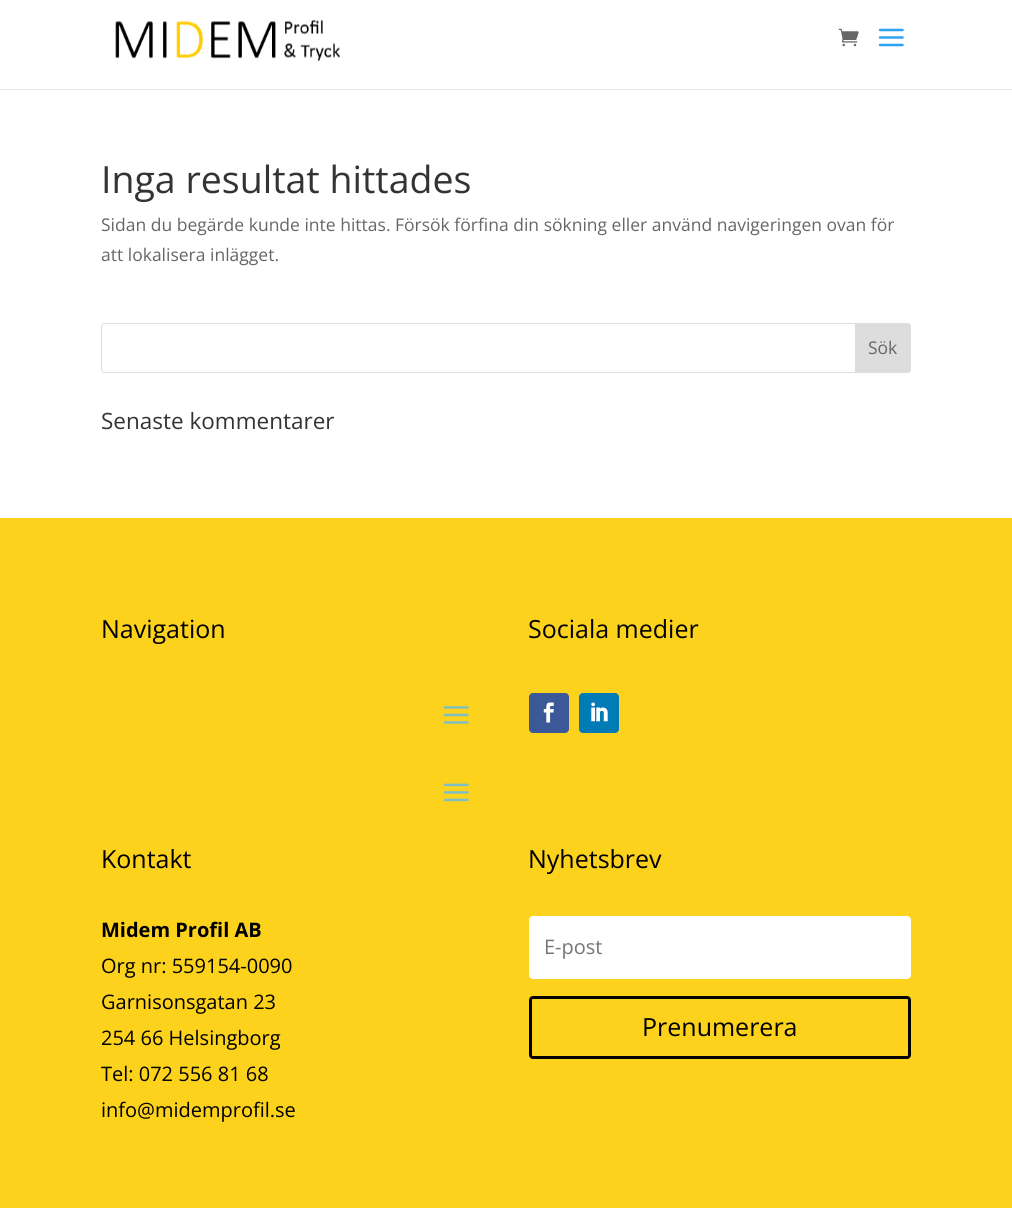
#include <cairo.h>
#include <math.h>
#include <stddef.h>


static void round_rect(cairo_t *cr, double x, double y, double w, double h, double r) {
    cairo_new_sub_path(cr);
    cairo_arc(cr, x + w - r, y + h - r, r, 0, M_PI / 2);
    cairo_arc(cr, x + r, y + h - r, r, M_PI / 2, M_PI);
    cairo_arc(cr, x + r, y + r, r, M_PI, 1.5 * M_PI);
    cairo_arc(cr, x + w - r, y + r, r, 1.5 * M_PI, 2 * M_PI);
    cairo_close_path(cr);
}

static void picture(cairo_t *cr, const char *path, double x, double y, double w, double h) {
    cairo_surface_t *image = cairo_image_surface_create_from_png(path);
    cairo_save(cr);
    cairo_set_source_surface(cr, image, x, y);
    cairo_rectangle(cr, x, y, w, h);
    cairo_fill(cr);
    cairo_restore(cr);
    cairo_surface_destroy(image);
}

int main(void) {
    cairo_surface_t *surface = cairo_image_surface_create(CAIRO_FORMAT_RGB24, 1012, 1208);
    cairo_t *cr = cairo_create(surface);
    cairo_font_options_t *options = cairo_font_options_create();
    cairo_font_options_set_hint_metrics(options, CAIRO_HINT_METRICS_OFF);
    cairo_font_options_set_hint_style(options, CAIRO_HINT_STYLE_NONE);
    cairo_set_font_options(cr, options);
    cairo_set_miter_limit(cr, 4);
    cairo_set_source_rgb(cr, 1, 1, 1);
    cairo_paint(cr);
    cairo_set_source_rgb(cr, 0.902, 0.902, 0.902);
    cairo_new_path(cr);
    cairo_move_to(cr, 0, 89);
    cairo_line_to(cr, 0, 90);
    cairo_line_to(cr, 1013, 90);
    cairo_line_to(cr, 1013, -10);
    cairo_line_to(cr, 1012, -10);
    cairo_line_to(cr, 1012, 89);
    cairo_close_path(cr);
    cairo_fill(cr);
    picture(cr, "img1.png", 115, 19, 225, 42);
    picture(cr, "img2.png", 838, 28, 21, 19);
    picture(cr, "img3.png", 878, 28, 26, 19);
    cairo_select_font_face(cr, "Open Sans", CAIRO_FONT_SLANT_NORMAL, CAIRO_FONT_WEIGHT_NORMAL);
    cairo_set_font_size(cr, 37.5);
    cairo_set_source_rgb(cr, 0.2, 0.2, 0.2);
    cairo_move_to(cr, 101, 193);
    cairo_show_text(cr, "Inga resultat hittades");
    cairo_set_font_size(cr, 17.5);
    cairo_set_source_rgb(cr, 0.4, 0.4, 0.4);
    cairo_move_to(cr, 101, 231);
    cairo_show_text(cr, "Sidan du begärde kunde inte hittas. Försök förfina din sökning eller använd navigeringen ovan för");
    cairo_move_to(cr, 101, 261);
    cairo_show_text(cr, "att lokalisera inlägget.");
    round_rect(cr, 101.5, 323.5, 809, 49, 3.5);
    cairo_set_source_rgb(cr, 0.867, 0.867, 0.867);
    cairo_set_line_width(cr, 1);
    cairo_stroke(cr);
    cairo_new_path(cr);
    cairo_move_to(cr, 855.5, 323.5);
    cairo_line_to(cr, 907, 323.5);
    cairo_curve_to(cr, 909, 323.5, 910.5, 325, 910.5, 327);
    cairo_line_to(cr, 910.5, 369);
    cairo_curve_to(cr, 910.5, 371, 909, 372.5, 907, 372.5);
    cairo_line_to(cr, 855.5, 372.5);
    cairo_close_path(cr);
    cairo_fill_preserve(cr);
    cairo_stroke(cr);
    cairo_set_source_rgb(cr, 0.4, 0.4, 0.4);
    cairo_move_to(cr, 868, 354);
    cairo_show_text(cr, "Sök");
    cairo_set_font_size(cr, 22.5);
    cairo_set_source_rgb(cr, 0.2, 0.2, 0.2);
    cairo_move_to(cr, 101, 429);
    cairo_show_text(cr, "Senaste kommentarer");
    cairo_set_source_rgb(cr, 0.988, 0.824, 0.114);
    cairo_rectangle(cr, 0, 518, 1012, 690);
    cairo_fill(cr);
    cairo_set_font_size(cr, 25);
    cairo_set_source_rgb(cr, 0, 0, 0);
    cairo_move_to(cr, 101, 638);
    cairo_show_text(cr, "Navigation");
    picture(cr, "img4.png", 443, 706, 26, 18);
    picture(cr, "img5.png", 443, 783, 26, 19);
    cairo_move_to(cr, 528, 638);
    cairo_show_text(cr, "Sociala medier");
    cairo_set_source_rgb(cr, 0.231, 0.349, 0.596);
    round_rect(cr, 529, 693, 40, 40, 4);
    cairo_fill(cr);
    picture(cr, "img6.png", 543, 702, 11, 21);
    cairo_set_source_rgb(cr, 0, 0.482, 0.714);
    round_rect(cr, 579, 693, 40, 40, 4);
    cairo_fill(cr);
    picture(cr, "img7.png", 591, 702, 17, 20);
    cairo_set_source_rgb(cr, 0, 0, 0);
    cairo_move_to(cr, 101, 868);
    cairo_show_text(cr, "Kontakt");
    cairo_select_font_face(cr, "Open Sans", CAIRO_FONT_SLANT_NORMAL, CAIRO_FONT_WEIGHT_BOLD);
    cairo_set_font_size(cr, 20);
    cairo_move_to(cr, 101, 937);
    cairo_show_text(cr, "Midem Profil AB");
    cairo_select_font_face(cr, "Open Sans", CAIRO_FONT_SLANT_NORMAL, CAIRO_FONT_WEIGHT_NORMAL);
    cairo_move_to(cr, 101, 973);
    cairo_show_text(cr, "Org nr: 559154-0090");
    cairo_move_to(cr, 101, 1009);
    cairo_show_text(cr, "Garnisonsgatan 23");
    cairo_move_to(cr, 101, 1045);
    cairo_show_text(cr, "254 66 Helsingborg");
    cairo_move_to(cr, 101, 1081);
    cairo_show_text(cr, "Tel: 072 556 81 68");
    cairo_move_to(cr, 101, 1117);
    cairo_show_text(cr, "info@midemprofil.se");
    cairo_set_font_size(cr, 25);
    cairo_move_to(cr, 528, 868);
    cairo_show_text(cr, "Nyhetsbrev");
    cairo_set_source_rgb(cr, 1, 1, 1);
    round_rect(cr, 529, 916, 382, 63, 4);
    cairo_fill(cr);
    cairo_set_font_size(cr, 20);
    cairo_set_source_rgb(cr, 0.459, 0.459, 0.459);
    cairo_move_to(cr, 544, 954);
    cairo_show_text(cr, "E-post");
    round_rect(cr, 530.5, 997.5, 379, 60, 2.5);
    cairo_set_source_rgb(cr, 0, 0, 0);
    cairo_set_line_width(cr, 3);
    cairo_stroke(cr);
    cairo_set_font_size(cr, 25);
    cairo_move_to(cr, 642, 1036);
    cairo_show_text(cr, "Prenumerera");
    cairo_surface_write_to_png(surface, "page.png");
    cairo_font_options_destroy(options);
    cairo_destroy(cr);
    cairo_surface_destroy(surface);
    return 0;
}
